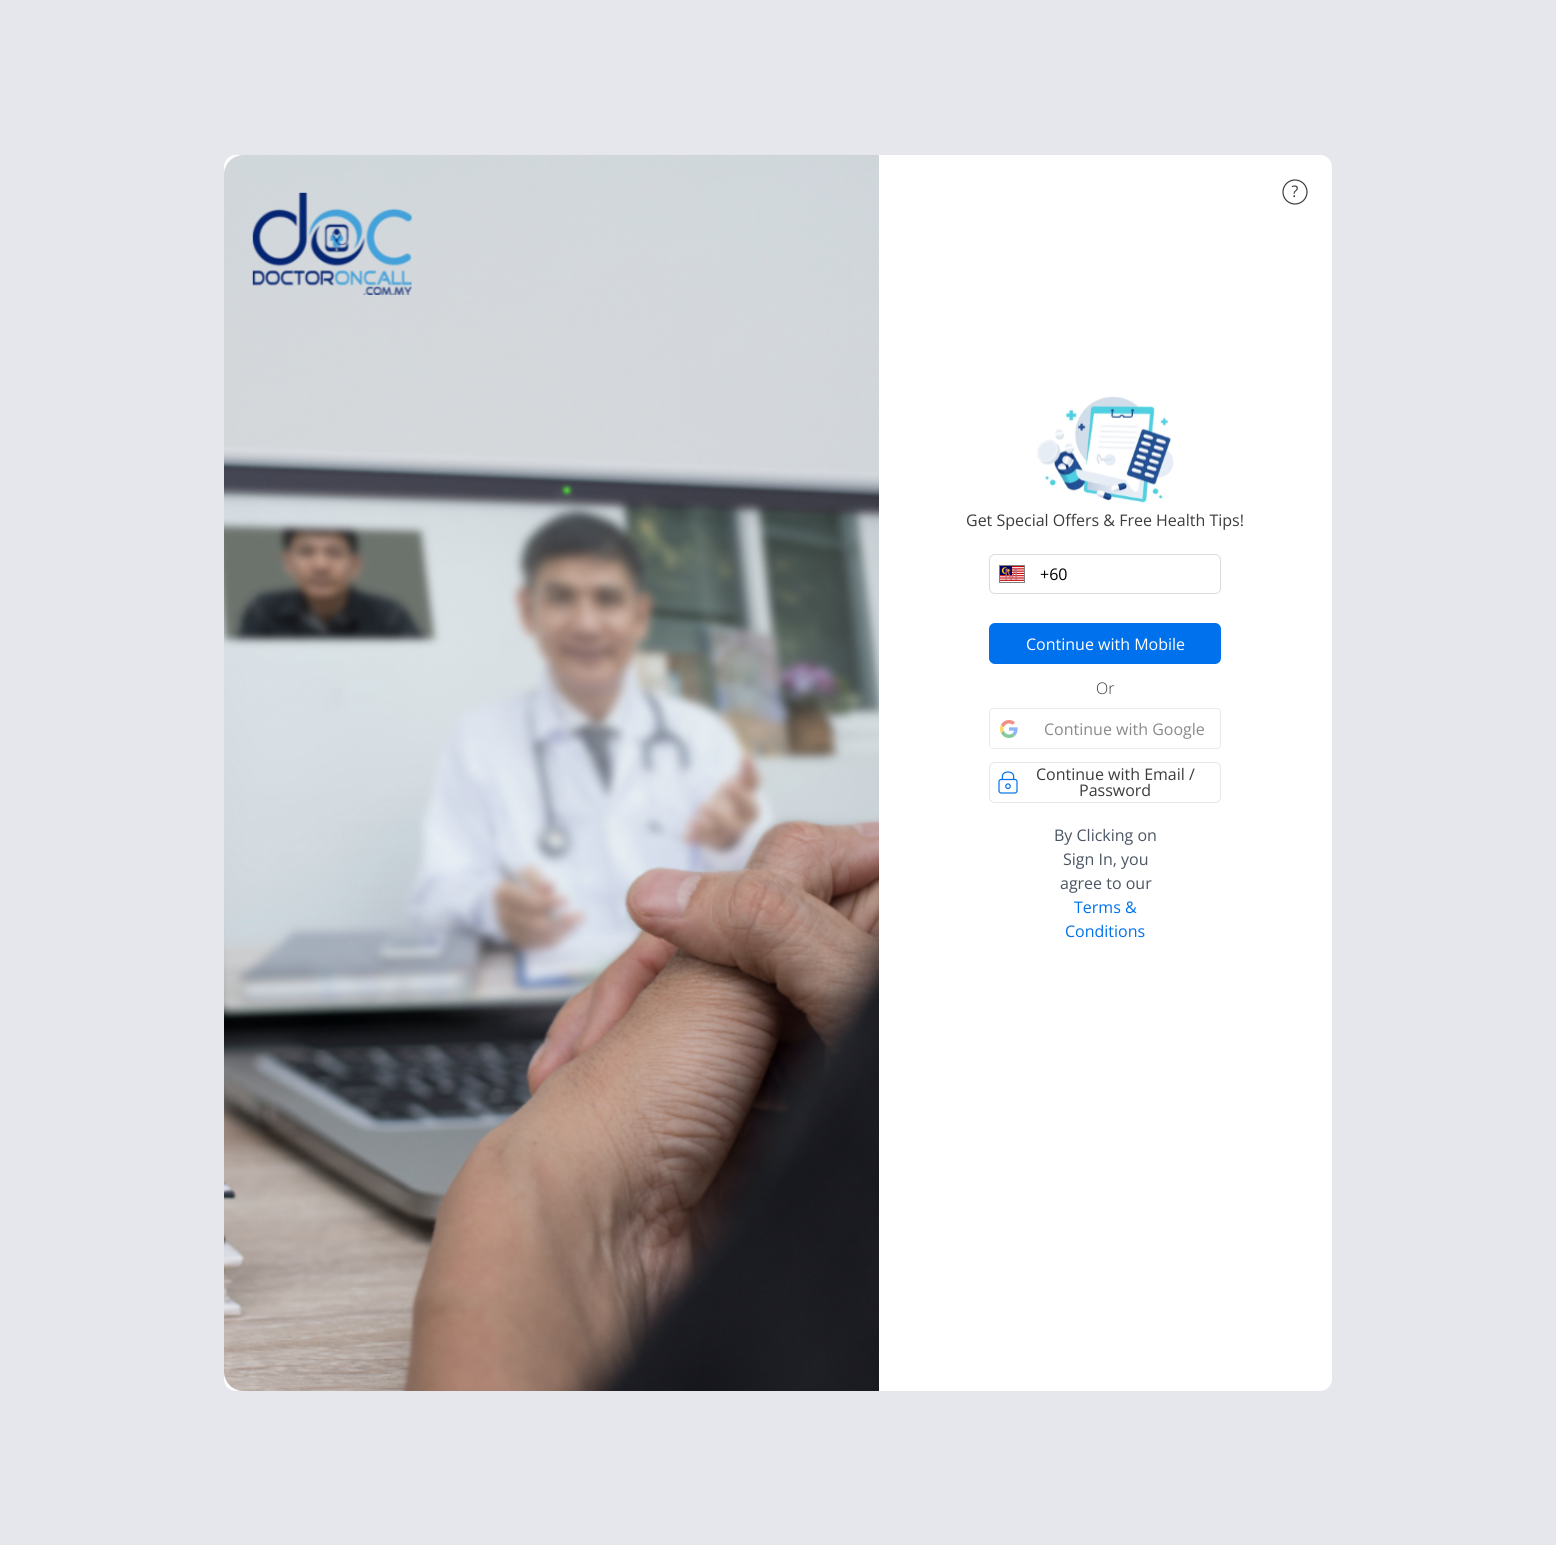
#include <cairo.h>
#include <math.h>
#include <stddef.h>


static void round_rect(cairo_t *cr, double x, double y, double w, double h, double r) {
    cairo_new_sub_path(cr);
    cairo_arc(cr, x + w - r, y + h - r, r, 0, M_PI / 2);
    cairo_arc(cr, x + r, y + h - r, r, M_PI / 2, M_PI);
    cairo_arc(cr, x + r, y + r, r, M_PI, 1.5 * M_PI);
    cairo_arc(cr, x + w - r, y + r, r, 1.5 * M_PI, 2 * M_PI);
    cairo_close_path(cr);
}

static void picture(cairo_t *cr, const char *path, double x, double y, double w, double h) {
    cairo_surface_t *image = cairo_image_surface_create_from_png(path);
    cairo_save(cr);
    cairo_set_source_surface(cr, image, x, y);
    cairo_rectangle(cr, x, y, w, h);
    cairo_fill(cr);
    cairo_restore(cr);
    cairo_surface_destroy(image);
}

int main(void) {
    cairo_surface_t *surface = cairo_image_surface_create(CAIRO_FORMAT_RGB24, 1556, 1545);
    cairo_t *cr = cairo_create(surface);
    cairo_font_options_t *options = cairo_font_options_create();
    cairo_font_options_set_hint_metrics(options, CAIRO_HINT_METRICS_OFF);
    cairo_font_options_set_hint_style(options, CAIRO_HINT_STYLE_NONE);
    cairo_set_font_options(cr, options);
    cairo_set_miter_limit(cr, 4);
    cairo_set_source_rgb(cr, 0.898, 0.906, 0.922);
    cairo_paint(cr);
    cairo_set_source_rgb(cr, 1, 1, 1);
    round_rect(cr, 224, 155, 1108, 1236, 12);
    cairo_fill(cr);
    picture(cr, "img1.png", 224, 155, 655, 1236);
    picture(cr, "img2.png", 1282, 179, 26, 26);
    picture(cr, "img3.png", 1037, 396, 137, 107);
    cairo_select_font_face(cr, "Open Sans", CAIRO_FONT_SLANT_NORMAL, CAIRO_FONT_WEIGHT_NORMAL);
    cairo_set_font_size(cr, 16);
    cairo_set_source_rgb(cr, 0.235, 0.235, 0.235);
    cairo_move_to(cr, 966, 526);
    cairo_show_text(cr, "Get Special Offers & Free Health Tips!");
    round_rect(cr, 989.5, 554.5, 231, 39, 5.5);
    cairo_set_source_rgb(cr, 0.859, 0.859, 0.859);
    cairo_set_line_width(cr, 1);
    cairo_stroke(cr);
    cairo_rectangle(cr, 999.5, 565.5, 25, 17);
    cairo_set_source_rgb(cr, 0.502, 0.502, 0.502);
    cairo_stroke(cr);
    picture(cr, "img4.png", 1000, 566, 24, 16);
    cairo_set_source_rgb(cr, 0.729, 0.424, 0.463);
    cairo_move_to(cr, 1004, 580);
    cairo_show_text(cr, "M");
    cairo_set_source_rgb(cr, 0, 0, 0);
    cairo_move_to(cr, 1040, 580);
    cairo_show_text(cr, "+60");
    cairo_set_source_rgb(cr, 0, 0.443, 0.922);
    round_rect(cr, 989, 623, 232, 41, 6);
    cairo_fill(cr);
    cairo_set_source_rgb(cr, 1, 1, 1);
    cairo_move_to(cr, 1026, 650);
    cairo_show_text(cr, "Continue with Mobile");
    cairo_select_font_face(cr, "Open Sans Light", CAIRO_FONT_SLANT_NORMAL, CAIRO_FONT_WEIGHT_NORMAL);
    cairo_set_source_rgb(cr, 0.235, 0.235, 0.235);
    cairo_move_to(cr, 1096, 694);
    cairo_show_text(cr, "Or");
    round_rect(cr, 989.5, 708.5, 231, 40, 3.5);
    cairo_set_source_rgb(cr, 0.914, 0.914, 0.914);
    cairo_stroke(cr);
    cairo_set_source_rgb(cr, 1, 1, 1);
    round_rect(cr, 990, 710, 38, 38, 2);
    cairo_fill(cr);
    picture(cr, "img5.png", 1000, 720, 18, 18);
    cairo_select_font_face(cr, "Open Sans", CAIRO_FONT_SLANT_NORMAL, CAIRO_FONT_WEIGHT_NORMAL);
    cairo_set_source_rgb(cr, 0.541, 0.541, 0.541);
    cairo_move_to(cr, 1044, 735);
    cairo_show_text(cr, "Continue with Google");
    round_rect(cr, 989.5, 762.5, 231, 40, 5.5);
    cairo_set_source_rgb(cr, 0.898, 0.906, 0.922);
    cairo_stroke(cr);
    picture(cr, "img6.png", 998, 771, 20, 23);
    cairo_set_source_rgb(cr, 0.235, 0.235, 0.235);
    cairo_move_to(cr, 1036, 780);
    cairo_show_text(cr, "Continue with Email /");
    cairo_move_to(cr, 1079, 796);
    cairo_show_text(cr, "Password");
    cairo_set_source_rgb(cr, 0.294, 0.333, 0.388);
    cairo_move_to(cr, 1054, 841);
    cairo_show_text(cr, "By Clicking on");
    cairo_move_to(cr, 1063, 865);
    cairo_show_text(cr, "Sign In, you");
    cairo_move_to(cr, 1060, 889);
    cairo_show_text(cr, "agree to our");
    cairo_set_source_rgb(cr, 0, 0.443, 0.922);
    cairo_move_to(cr, 1074, 913);
    cairo_show_text(cr, "Terms &");
    cairo_move_to(cr, 1065, 937);
    cairo_show_text(cr, "Conditions");
    cairo_surface_write_to_png(surface, "page.png");
    cairo_font_options_destroy(options);
    cairo_destroy(cr);
    cairo_surface_destroy(surface);
    return 0;
}
